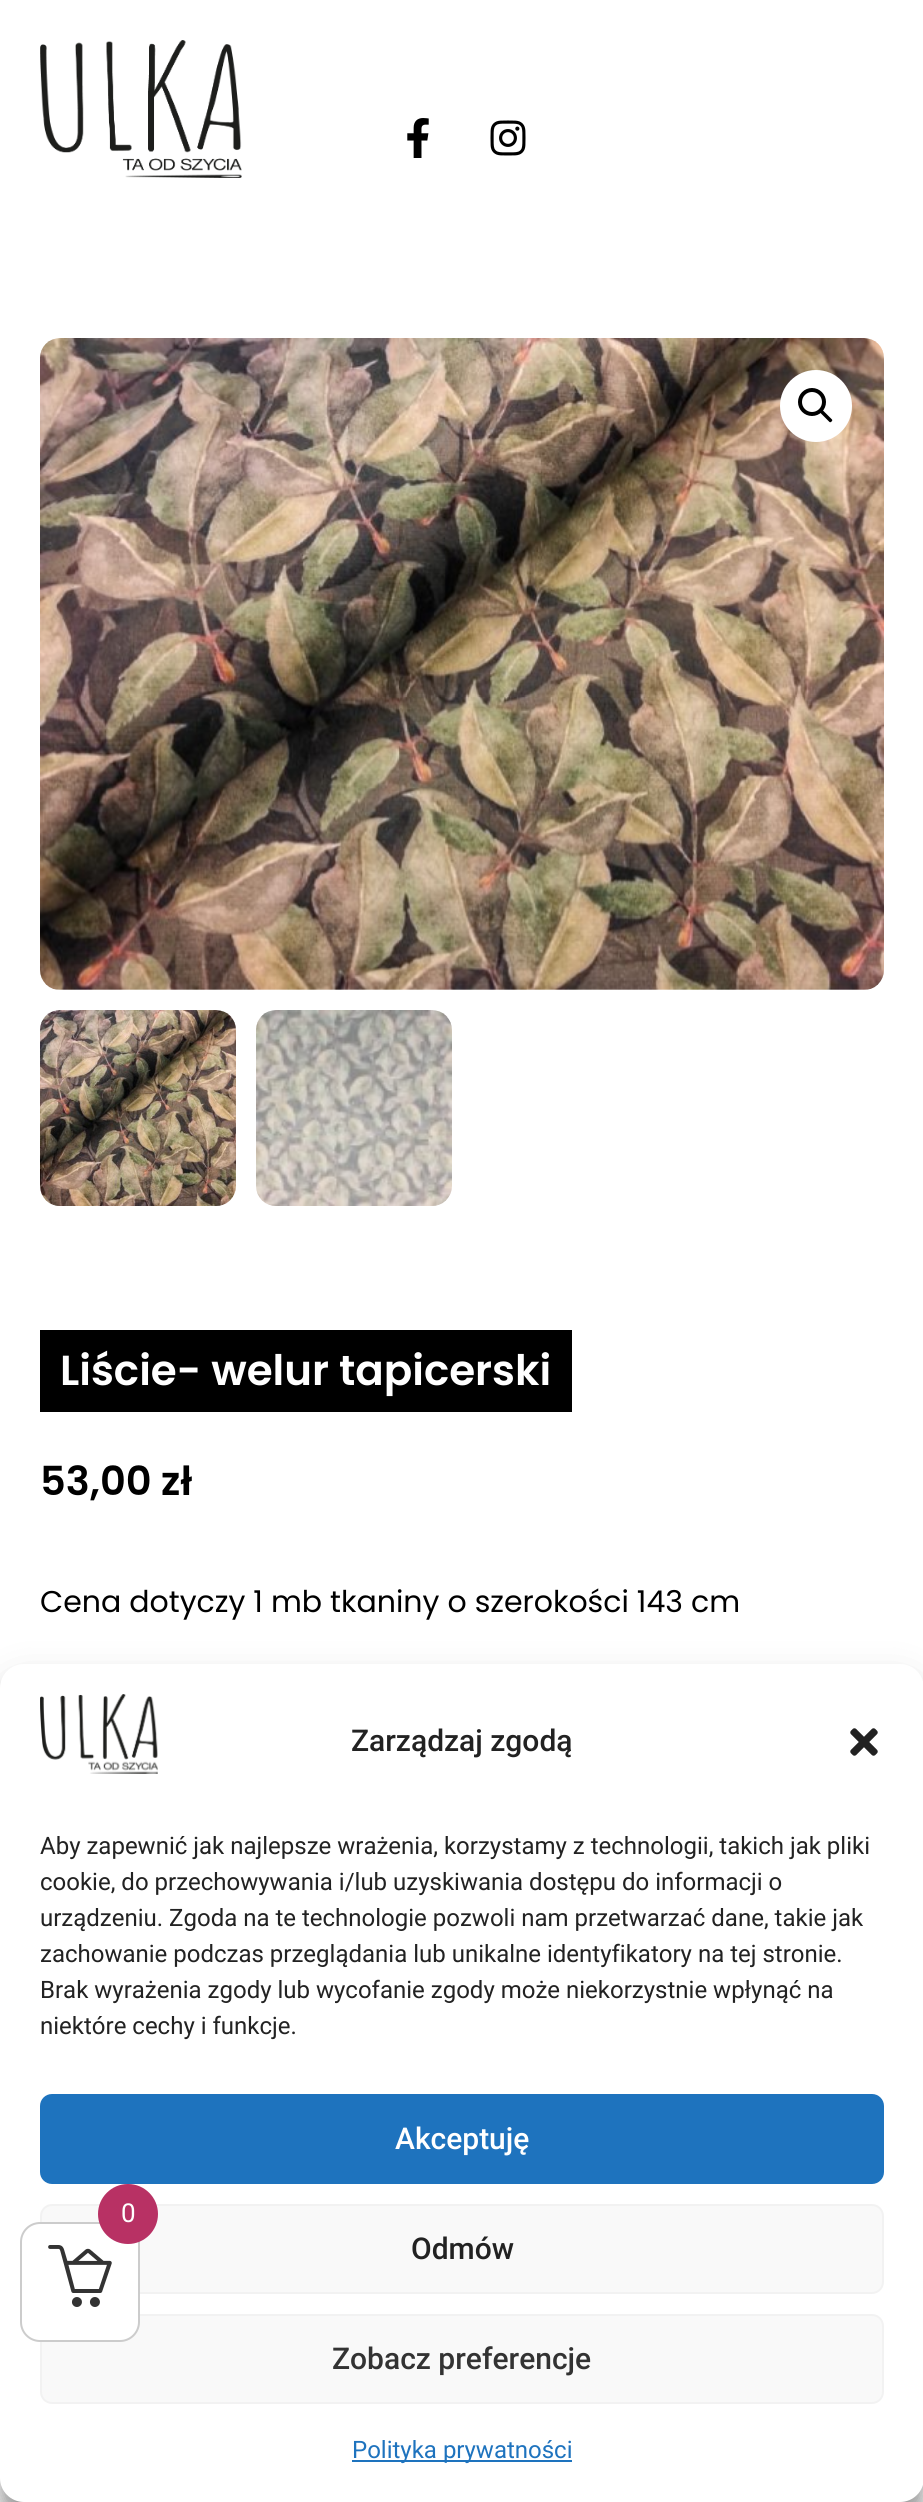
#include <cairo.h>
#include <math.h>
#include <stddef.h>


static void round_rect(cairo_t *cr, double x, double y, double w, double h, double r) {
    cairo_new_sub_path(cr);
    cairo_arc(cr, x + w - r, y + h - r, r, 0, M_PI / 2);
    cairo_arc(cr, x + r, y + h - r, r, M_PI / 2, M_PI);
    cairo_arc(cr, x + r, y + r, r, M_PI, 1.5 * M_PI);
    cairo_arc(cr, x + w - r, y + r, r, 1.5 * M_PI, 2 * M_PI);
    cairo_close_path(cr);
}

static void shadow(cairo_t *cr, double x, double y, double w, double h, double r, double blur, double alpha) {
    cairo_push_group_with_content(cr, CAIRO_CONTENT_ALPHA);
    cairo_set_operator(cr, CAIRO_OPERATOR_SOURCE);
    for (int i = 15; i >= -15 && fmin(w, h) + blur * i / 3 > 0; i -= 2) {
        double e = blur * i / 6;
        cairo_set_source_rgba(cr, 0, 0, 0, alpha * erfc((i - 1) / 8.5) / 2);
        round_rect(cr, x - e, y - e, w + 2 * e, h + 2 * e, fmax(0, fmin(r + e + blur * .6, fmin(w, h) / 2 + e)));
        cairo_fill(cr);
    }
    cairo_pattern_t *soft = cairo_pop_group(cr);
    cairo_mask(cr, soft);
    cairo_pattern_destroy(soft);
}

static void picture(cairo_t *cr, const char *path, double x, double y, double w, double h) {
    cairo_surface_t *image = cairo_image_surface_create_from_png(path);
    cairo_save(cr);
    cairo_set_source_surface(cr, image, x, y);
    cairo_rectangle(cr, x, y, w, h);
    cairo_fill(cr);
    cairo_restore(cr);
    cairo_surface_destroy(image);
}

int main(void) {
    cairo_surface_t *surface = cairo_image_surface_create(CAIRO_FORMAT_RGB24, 923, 2502);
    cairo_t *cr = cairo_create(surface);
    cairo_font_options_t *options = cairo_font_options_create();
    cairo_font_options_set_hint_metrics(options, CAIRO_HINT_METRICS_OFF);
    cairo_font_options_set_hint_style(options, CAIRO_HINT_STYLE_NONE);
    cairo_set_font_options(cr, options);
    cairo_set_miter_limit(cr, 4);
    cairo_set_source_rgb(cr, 1, 1, 1);
    cairo_paint(cr);
    picture(cr, "img1.png", 40, 40, 202, 138);
    picture(cr, "img2.png", 407, 118, 22, 40);
    picture(cr, "img3.png", 490, 120, 36, 36);
    picture(cr, "img4.png", 40, 338, 844, 652);
    cairo_set_source_rgb(cr, 1, 1, 1);
    cairo_arc(cr, 816, 406, 36, 0, 2 * M_PI);
    cairo_fill(cr);
    cairo_arc(cr, 812, 402, 12, 0, 2 * M_PI);
    cairo_set_source_rgb(cr, 0, 0, 0);
    cairo_set_line_width(cr, 4);
    cairo_stroke(cr);
    cairo_new_path(cr);
    cairo_move_to(cr, 820.5, 410.5);
    cairo_curve_to(cr, 821, 409.5, 822.5, 409.5, 823, 410.5);
    cairo_line_to(cr, 831.5, 419);
    cairo_curve_to(cr, 832.5, 419.5, 832.5, 421, 831.5, 421.5);
    cairo_curve_to(cr, 831, 422.5, 829.5, 422.5, 829, 421.5);
    cairo_line_to(cr, 820.5, 413);
    cairo_curve_to(cr, 819.5, 412.5, 819.5, 411, 820.5, 410.5);
    cairo_close_path(cr);
    cairo_fill(cr);
    picture(cr, "img5.png", 40, 1010, 196, 196);
    picture(cr, "img6.png", 256, 1010, 196, 196);
    cairo_rectangle(cr, 40, 1330, 532, 82);
    cairo_fill(cr);
    cairo_select_font_face(cr, "Poppins SemiBold", CAIRO_FONT_SLANT_NORMAL, CAIRO_FONT_WEIGHT_NORMAL);
    cairo_set_font_size(cr, 42);
    cairo_set_source_rgb(cr, 1, 1, 1);
    cairo_move_to(cr, 60, 1385);
    cairo_show_text(cr, "Liście- welur tapicerski");
    cairo_set_font_size(cr, 40);
    cairo_set_source_rgb(cr, 0, 0, 0);
    cairo_move_to(cr, 40, 1495);
    cairo_show_text(cr, "53,00 zł");
    cairo_select_font_face(cr, "Poppins", CAIRO_FONT_SLANT_NORMAL, CAIRO_FONT_WEIGHT_NORMAL);
    cairo_set_font_size(cr, 30);
    cairo_move_to(cr, 40, 1612);
    cairo_show_text(cr, "Cena dotyczy 1 mb tkaniny o szerokości 143 cm");
    cairo_set_source_rgb(cr, 0, 0, 0);
    shadow(cr, 0, 1676, 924, 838, 24, 6, 0.23);
    shadow(cr, 0, 1684, 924, 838, 24, 20, 0.19);
    shadow(cr, 0, 2502, 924, 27, 0, 9, 0.12);
    cairo_set_source_rgb(cr, 1, 1, 1);
    round_rect(cr, 0, 1664, 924, 838, 24);
    cairo_fill(cr);
    picture(cr, "img7.png", 40, 1694, 118, 80);
    cairo_select_font_face(cr, "Roboto Medium", CAIRO_FONT_SLANT_NORMAL, CAIRO_FONT_WEIGHT_NORMAL);
    cairo_set_source_rgb(cr, 0.133, 0.133, 0.133);
    cairo_move_to(cr, 351, 1751);
    cairo_show_text(cr, "Zarządzaj zgodą");
    picture(cr, "img8.png", 850, 1728, 28, 28);
    cairo_select_font_face(cr, "Roboto", CAIRO_FONT_SLANT_NORMAL, CAIRO_FONT_WEIGHT_NORMAL);
    cairo_set_font_size(cr, 24);
    cairo_move_to(cr, 40, 1854);
    cairo_show_text(cr, "Aby zapewnić jak najlepsze wrażenia, korzystamy z technologii, takich jak pliki");
    cairo_move_to(cr, 40, 1890);
    cairo_show_text(cr, "cookie, do przechowywania i/lub uzyskiwania dostępu do informacji o");
    cairo_move_to(cr, 40, 1926);
    cairo_show_text(cr, "urządzeniu. Zgoda na te technologie pozwoli nam przetwarzać dane, takie jak");
    cairo_move_to(cr, 40, 1962);
    cairo_show_text(cr, "zachowanie podczas przeglądania lub unikalne identyfikatory na tej stronie.");
    cairo_move_to(cr, 40, 1998);
    cairo_show_text(cr, "Brak wyrażenia zgody lub wycofanie zgody może niekorzystnie wpłynąć na");
    cairo_move_to(cr, 40, 2034);
    cairo_show_text(cr, "niektóre cechy i funkcje.");
    cairo_set_source_rgb(cr, 0.118, 0.451, 0.745);
    round_rect(cr, 41, 2095, 842, 88, 11);
    cairo_fill_preserve(cr);
    cairo_set_line_width(cr, 2);
    cairo_stroke(cr);
    cairo_select_font_face(cr, "Roboto Medium", CAIRO_FONT_SLANT_NORMAL, CAIRO_FONT_WEIGHT_NORMAL);
    cairo_set_font_size(cr, 30);
    cairo_set_source_rgb(cr, 1, 1, 1);
    cairo_move_to(cr, 395, 2149);
    cairo_show_text(cr, "Akceptuję");
    cairo_set_source_rgb(cr, 0.976, 0.976, 0.976);
    round_rect(cr, 41, 2205, 842, 88, 11);
    cairo_fill_preserve(cr);
    cairo_set_source_rgb(cr, 0.949, 0.949, 0.949);
    cairo_stroke(cr);
    cairo_set_source_rgb(cr, 0.133, 0.133, 0.133);
    cairo_move_to(cr, 411, 2259);
    cairo_show_text(cr, "Odmów");
    cairo_set_source_rgb(cr, 0.976, 0.976, 0.976);
    round_rect(cr, 41, 2315, 842, 88, 11);
    cairo_fill_preserve(cr);
    cairo_set_source_rgb(cr, 0.949, 0.949, 0.949);
    cairo_stroke(cr);
    cairo_set_source_rgb(cr, 0.2, 0.2, 0.2);
    cairo_move_to(cr, 332, 2369);
    cairo_show_text(cr, "Zobacz preferencje");
    cairo_set_source_rgb(cr, 0.118, 0.451, 0.745);
    cairo_rectangle(cr, 352, 2460, 220, 2);
    cairo_fill(cr);
    cairo_select_font_face(cr, "Roboto", CAIRO_FONT_SLANT_NORMAL, CAIRO_FONT_WEIGHT_NORMAL);
    cairo_set_font_size(cr, 24);
    cairo_move_to(cr, 352, 2458);
    cairo_show_text(cr, "Polityka prywatności");
    cairo_set_source_rgb(cr, 1, 1, 1);
    round_rect(cr, 21, 2223, 118, 118, 19);
    cairo_fill_preserve(cr);
    cairo_set_source_rgb(cr, 0.8, 0.8, 0.8);
    cairo_stroke(cr);
    cairo_set_source_rgb(cr, 0.722, 0.192, 0.392);
    cairo_arc(cr, 128, 2214, 30, 0, 2 * M_PI);
    cairo_fill(cr);
    cairo_set_font_size(cr, 26);
    cairo_set_source_rgb(cr, 1, 1, 1);
    cairo_move_to(cr, 121, 2222);
    cairo_show_text(cr, "0");
    picture(cr, "img9.png", 48, 2245, 64, 62);
    cairo_surface_write_to_png(surface, "page.png");
    cairo_font_options_destroy(options);
    cairo_destroy(cr);
    cairo_surface_destroy(surface);
    return 0;
}
